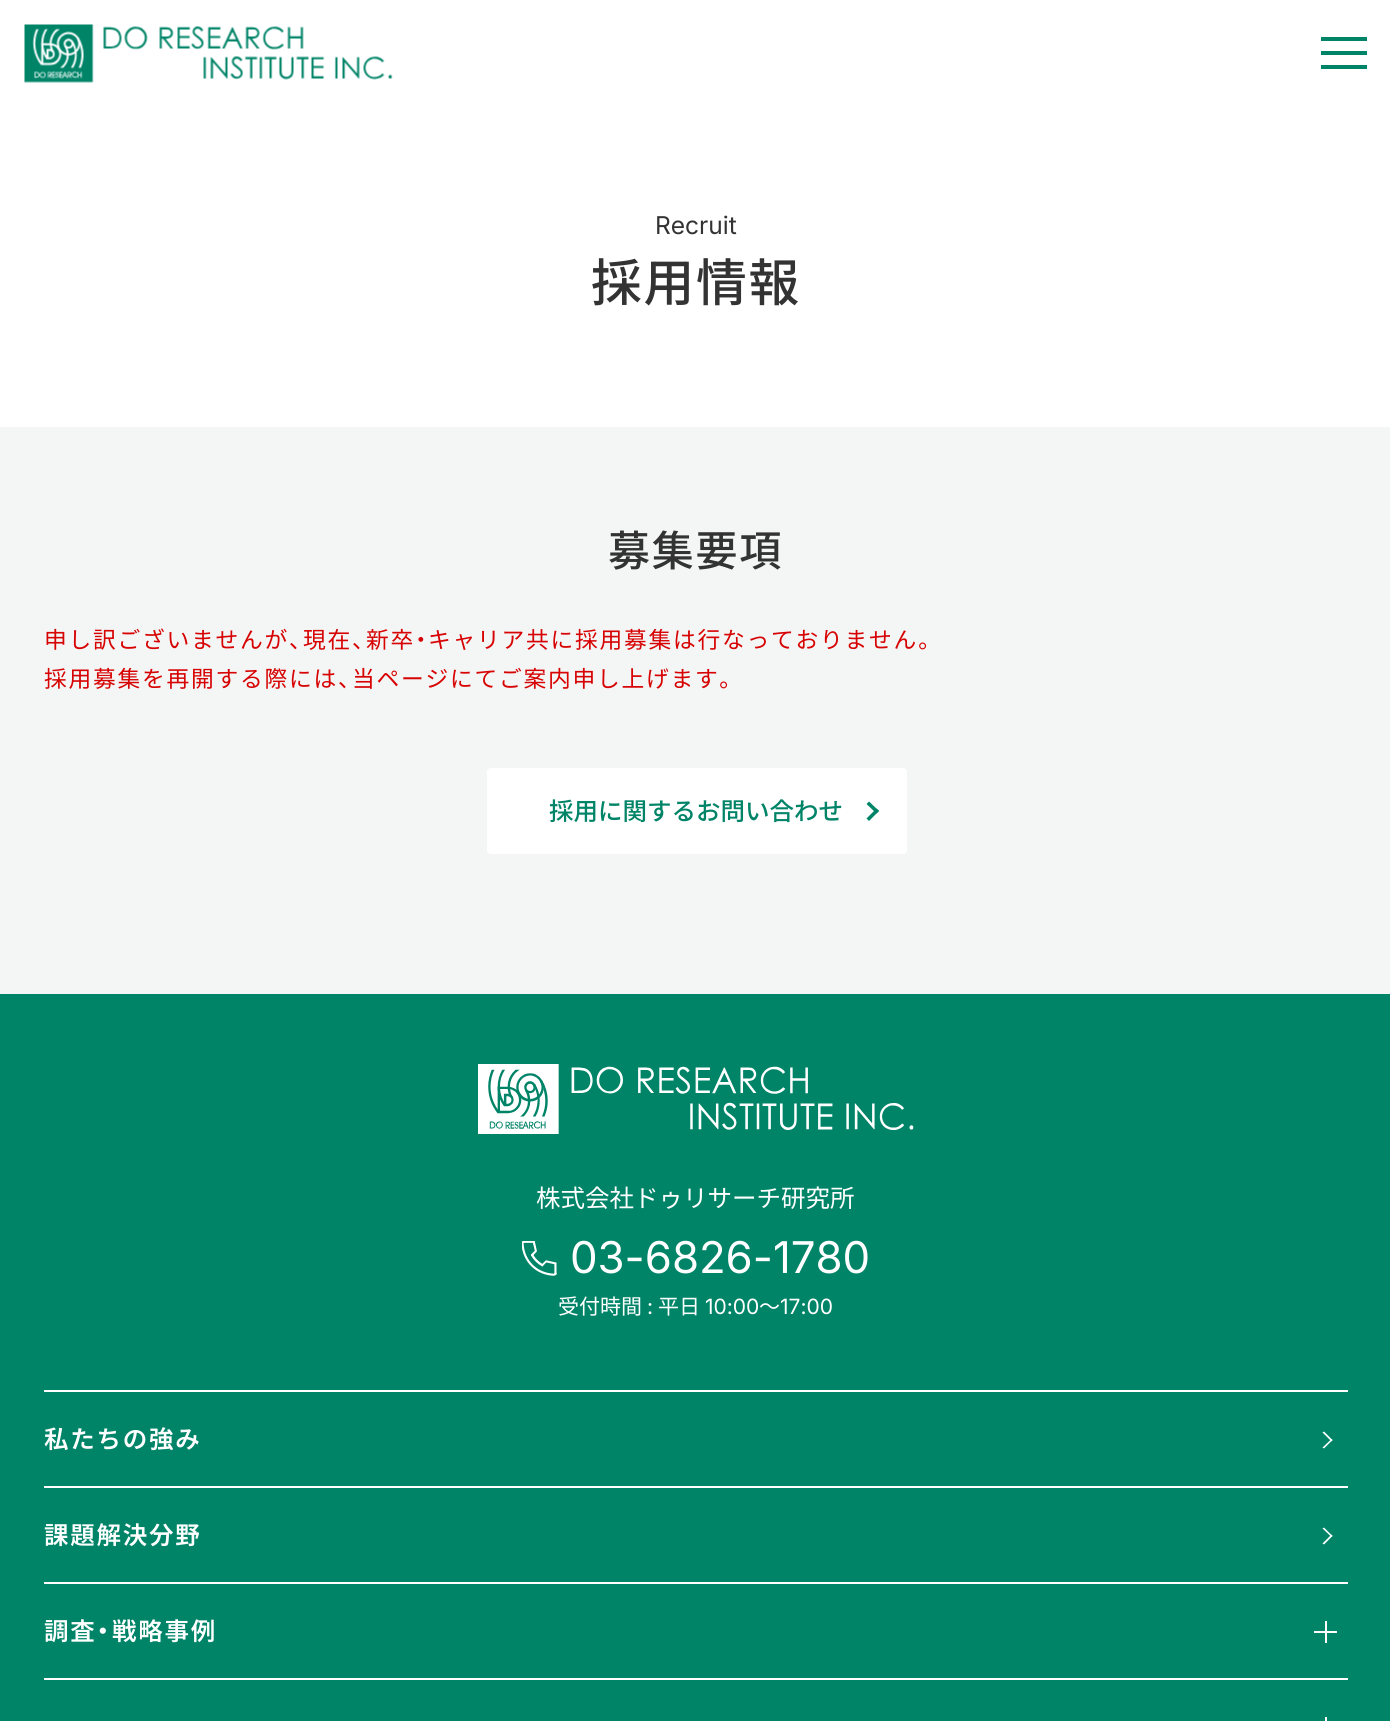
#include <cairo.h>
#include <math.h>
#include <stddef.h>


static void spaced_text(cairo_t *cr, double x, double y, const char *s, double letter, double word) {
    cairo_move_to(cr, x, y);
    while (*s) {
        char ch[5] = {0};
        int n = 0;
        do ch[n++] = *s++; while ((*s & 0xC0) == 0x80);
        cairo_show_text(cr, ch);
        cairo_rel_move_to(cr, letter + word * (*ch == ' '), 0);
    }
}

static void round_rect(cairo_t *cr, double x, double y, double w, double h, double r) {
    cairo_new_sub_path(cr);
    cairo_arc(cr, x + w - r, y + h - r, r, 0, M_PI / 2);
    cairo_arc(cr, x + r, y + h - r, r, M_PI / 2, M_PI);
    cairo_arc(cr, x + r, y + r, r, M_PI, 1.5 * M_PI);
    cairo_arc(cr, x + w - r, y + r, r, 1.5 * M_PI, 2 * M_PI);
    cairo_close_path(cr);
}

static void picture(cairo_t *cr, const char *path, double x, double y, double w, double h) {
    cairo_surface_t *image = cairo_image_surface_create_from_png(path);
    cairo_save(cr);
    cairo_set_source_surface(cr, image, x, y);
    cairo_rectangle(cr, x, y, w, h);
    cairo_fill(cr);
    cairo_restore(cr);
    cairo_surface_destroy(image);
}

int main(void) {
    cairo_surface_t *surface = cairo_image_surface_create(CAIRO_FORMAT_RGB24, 1390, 1721);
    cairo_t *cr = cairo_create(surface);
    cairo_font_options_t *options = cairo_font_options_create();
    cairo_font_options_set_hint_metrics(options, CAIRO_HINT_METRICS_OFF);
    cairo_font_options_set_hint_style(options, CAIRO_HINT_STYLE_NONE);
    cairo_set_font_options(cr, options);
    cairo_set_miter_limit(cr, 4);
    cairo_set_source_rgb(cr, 0, 0.518, 0.408);
    cairo_paint(cr);
    cairo_set_source_rgb(cr, 1, 1, 1);
    cairo_rectangle(cr, 0, 0, 1390, 427);
    cairo_fill(cr);
    picture(cr, "img1.png", 24, 24, 369, 59);
    cairo_set_source_rgb(cr, 0, 0.518, 0.408);
    cairo_rectangle(cr, 1321, 37, 46, 4);
    cairo_fill(cr);
    cairo_rectangle(cr, 1321, 51, 46, 4);
    cairo_fill(cr);
    cairo_rectangle(cr, 1321, 65, 46, 4);
    cairo_fill(cr);
    cairo_set_source_rgb(cr, 0.957, 0.961, 0.961);
    cairo_rectangle(cr, 0, 427, 1390, 567);
    cairo_fill(cr);
    cairo_select_font_face(cr, "Inter", CAIRO_FONT_SLANT_NORMAL, CAIRO_FONT_WEIGHT_NORMAL);
    cairo_set_font_size(cr, 24.5);
    cairo_set_source_rgb(cr, 0.2, 0.2, 0.2);
    cairo_move_to(cr, 655, 234);
    cairo_show_text(cr, "Recruit");
    cairo_select_font_face(cr, "Noto Sans JP Medium", CAIRO_FONT_SLANT_NORMAL, CAIRO_FONT_WEIGHT_NORMAL);
    cairo_set_font_size(cr, 50.75);
    spaced_text(cr, 591, 301, "採用情報", 1.75, 0);
    cairo_set_font_size(cr, 42);
    spaced_text(cr, 608, 566, "募集要項", 1.75, 0);
    cairo_select_font_face(cr, "Noto Sans JP", CAIRO_FONT_SLANT_NORMAL, CAIRO_FONT_WEIGHT_NORMAL);
    cairo_set_font_size(cr, 22.75);
    cairo_set_source_rgb(cr, 0.843, 0.008, 0.008);
    spaced_text(cr, 44, 648, "申し訳ございませんが", 1.75, 0);
    spaced_text(cr, 303, 648, "現在", 1.75, 0);
    spaced_text(cr, 366, 648, "新卒", 1.75, 0);
    cairo_select_font_face(cr, "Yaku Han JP", CAIRO_FONT_SLANT_NORMAL, CAIRO_FONT_WEIGHT_NORMAL);
    spaced_text(cr, 415, 648, "・", 1.75, 0);
    cairo_select_font_face(cr, "Noto Sans JP", CAIRO_FONT_SLANT_NORMAL, CAIRO_FONT_WEIGHT_NORMAL);
    spaced_text(cr, 428, 648, "キャリア共に採用募集は行なっておりません", 1.75, 0);
    cairo_select_font_face(cr, "Yaku Han JP", CAIRO_FONT_SLANT_NORMAL, CAIRO_FONT_WEIGHT_NORMAL);
    spaced_text(cr, 289, 648, "、", 1.75, 0);
    spaced_text(cr, 352, 648, "、", 1.75, 0);
    spaced_text(cr, 918, 648, "。", 1.75, 0);
    cairo_select_font_face(cr, "Noto Sans JP", CAIRO_FONT_SLANT_NORMAL, CAIRO_FONT_WEIGHT_NORMAL);
    spaced_text(cr, 44, 687, "採用募集を再開する際には", 1.75, 0);
    cairo_select_font_face(cr, "Yaku Han JP", CAIRO_FONT_SLANT_NORMAL, CAIRO_FONT_WEIGHT_NORMAL);
    spaced_text(cr, 338, 687, "、", 1.75, 0);
    cairo_select_font_face(cr, "Noto Sans JP", CAIRO_FONT_SLANT_NORMAL, CAIRO_FONT_WEIGHT_NORMAL);
    spaced_text(cr, 352, 687, "当ページにてご案内申し上げます", 1.75, 0);
    cairo_select_font_face(cr, "Yaku Han JP", CAIRO_FONT_SLANT_NORMAL, CAIRO_FONT_WEIGHT_NORMAL);
    spaced_text(cr, 719, 687, "。", 1.75, 0);
    cairo_set_source_rgb(cr, 1, 1, 1);
    round_rect(cr, 487, 768, 420, 86, 4);
    cairo_fill(cr);
    cairo_select_font_face(cr, "Noto Sans JP Medium", CAIRO_FONT_SLANT_NORMAL, CAIRO_FONT_WEIGHT_NORMAL);
    cairo_set_font_size(cr, 24.5);
    cairo_set_source_rgb(cr, 0, 0.518, 0.408);
    cairo_move_to(cr, 549, 820);
    cairo_show_text(cr, "採用に関するお問い合わせ");
    cairo_new_path(cr);
    cairo_move_to(cr, 869, 801.5);
    cairo_line_to(cr, 879, 811);
    cairo_line_to(cr, 876.5, 813.5);
    cairo_line_to(cr, 866.5, 804);
    cairo_close_path(cr);
    cairo_fill(cr);
    cairo_new_path(cr);
    cairo_move_to(cr, 876.5, 808.5);
    cairo_line_to(cr, 879, 811);
    cairo_line_to(cr, 869, 821);
    cairo_line_to(cr, 866.5, 818.5);
    cairo_close_path(cr);
    cairo_fill(cr);
    picture(cr, "img2.png", 478, 1064, 436, 70);
    cairo_select_font_face(cr, "Noto Sans JP", CAIRO_FONT_SLANT_NORMAL, CAIRO_FONT_WEIGHT_NORMAL);
    cairo_set_source_rgb(cr, 1, 1, 1);
    cairo_move_to(cr, 536, 1207);
    cairo_show_text(cr, "株式会社ドゥリサーチ研究所");
    picture(cr, "img3.png", 522, 1241, 35, 35);
    cairo_select_font_face(cr, "Inter", CAIRO_FONT_SLANT_NORMAL, CAIRO_FONT_WEIGHT_NORMAL);
    cairo_set_font_size(cr, 43.75);
    cairo_move_to(cr, 570, 1273);
    cairo_show_text(cr, "03-6826-1780");
    cairo_select_font_face(cr, "Noto Sans JP", CAIRO_FONT_SLANT_NORMAL, CAIRO_FONT_WEIGHT_NORMAL);
    cairo_set_font_size(cr, 21);
    cairo_move_to(cr, 558, 1314);
    cairo_show_text(cr, "受付時間");
    cairo_select_font_face(cr, "Inter", CAIRO_FONT_SLANT_NORMAL, CAIRO_FONT_WEIGHT_NORMAL);
    cairo_move_to(cr, 647, 1314);
    cairo_show_text(cr, ":");
    cairo_select_font_face(cr, "Noto Sans JP", CAIRO_FONT_SLANT_NORMAL, CAIRO_FONT_WEIGHT_NORMAL);
    cairo_move_to(cr, 658, 1314);
    cairo_show_text(cr, "平日");
    cairo_select_font_face(cr, "Inter", CAIRO_FONT_SLANT_NORMAL, CAIRO_FONT_WEIGHT_NORMAL);
    cairo_move_to(cr, 705, 1314);
    cairo_show_text(cr, "10:00");
    cairo_select_font_face(cr, "Noto Sans JP", CAIRO_FONT_SLANT_NORMAL, CAIRO_FONT_WEIGHT_NORMAL);
    cairo_move_to(cr, 759, 1314);
    cairo_show_text(cr, "～");
    cairo_select_font_face(cr, "Inter", CAIRO_FONT_SLANT_NORMAL, CAIRO_FONT_WEIGHT_NORMAL);
    cairo_move_to(cr, 780, 1314);
    cairo_show_text(cr, "17:00");
    cairo_rectangle(cr, 44, 1390, 1304, 2);
    cairo_fill(cr);
    cairo_rectangle(cr, 44, 1486, 1304, 2);
    cairo_fill(cr);
    cairo_select_font_face(cr, "Noto Sans JP SemiBold", CAIRO_FONT_SLANT_NORMAL, CAIRO_FONT_WEIGHT_NORMAL);
    cairo_set_font_size(cr, 24.5);
    spaced_text(cr, 44, 1448, "私たちの強み", 1.75, 0);
    cairo_new_path(cr);
    cairo_move_to(cr, 1324, 1431.5);
    cairo_line_to(cr, 1332.5, 1440);
    cairo_line_to(cr, 1331.5, 1441.5);
    cairo_line_to(cr, 1322.5, 1432.5);
    cairo_close_path(cr);
    cairo_fill(cr);
    cairo_new_path(cr);
    cairo_move_to(cr, 1331.5, 1439);
    cairo_line_to(cr, 1332.5, 1440);
    cairo_line_to(cr, 1324, 1448.5);
    cairo_line_to(cr, 1322.5, 1447.5);
    cairo_close_path(cr);
    cairo_fill(cr);
    cairo_rectangle(cr, 44, 1582, 1304, 2);
    cairo_fill(cr);
    spaced_text(cr, 44, 1544, "課題解決分野", 1.75, 0);
    cairo_new_path(cr);
    cairo_move_to(cr, 1324, 1527.5);
    cairo_line_to(cr, 1332.5, 1536);
    cairo_line_to(cr, 1331.5, 1537);
    cairo_line_to(cr, 1322.5, 1528.5);
    cairo_close_path(cr);
    cairo_fill(cr);
    cairo_new_path(cr);
    cairo_move_to(cr, 1331.5, 1534.5);
    cairo_line_to(cr, 1332.5, 1536);
    cairo_line_to(cr, 1324, 1544.5);
    cairo_line_to(cr, 1322.5, 1543.5);
    cairo_close_path(cr);
    cairo_fill(cr);
    cairo_rectangle(cr, 44, 1678, 1304, 2);
    cairo_fill(cr);
    spaced_text(cr, 44, 1640, "調査", 1.75, 0);
    cairo_select_font_face(cr, "Yaku Han JP", CAIRO_FONT_SLANT_NORMAL, CAIRO_FONT_WEIGHT_BOLD);
    spaced_text(cr, 96, 1640, "・", 1.75, 0);
    cairo_select_font_face(cr, "Noto Sans JP SemiBold", CAIRO_FONT_SLANT_NORMAL, CAIRO_FONT_WEIGHT_NORMAL);
    spaced_text(cr, 112, 1640, "戦略事例", 1.75, 0);
    cairo_rectangle(cr, 1325, 1621, 2, 22);
    cairo_fill(cr);
    cairo_rectangle(cr, 1314, 1631, 23, 2);
    cairo_fill(cr);
    cairo_rectangle(cr, 1325, 1717, 2, 4);
    cairo_fill(cr);
    cairo_surface_write_to_png(surface, "page.png");
    cairo_font_options_destroy(options);
    cairo_destroy(cr);
    cairo_surface_destroy(surface);
    return 0;
}
